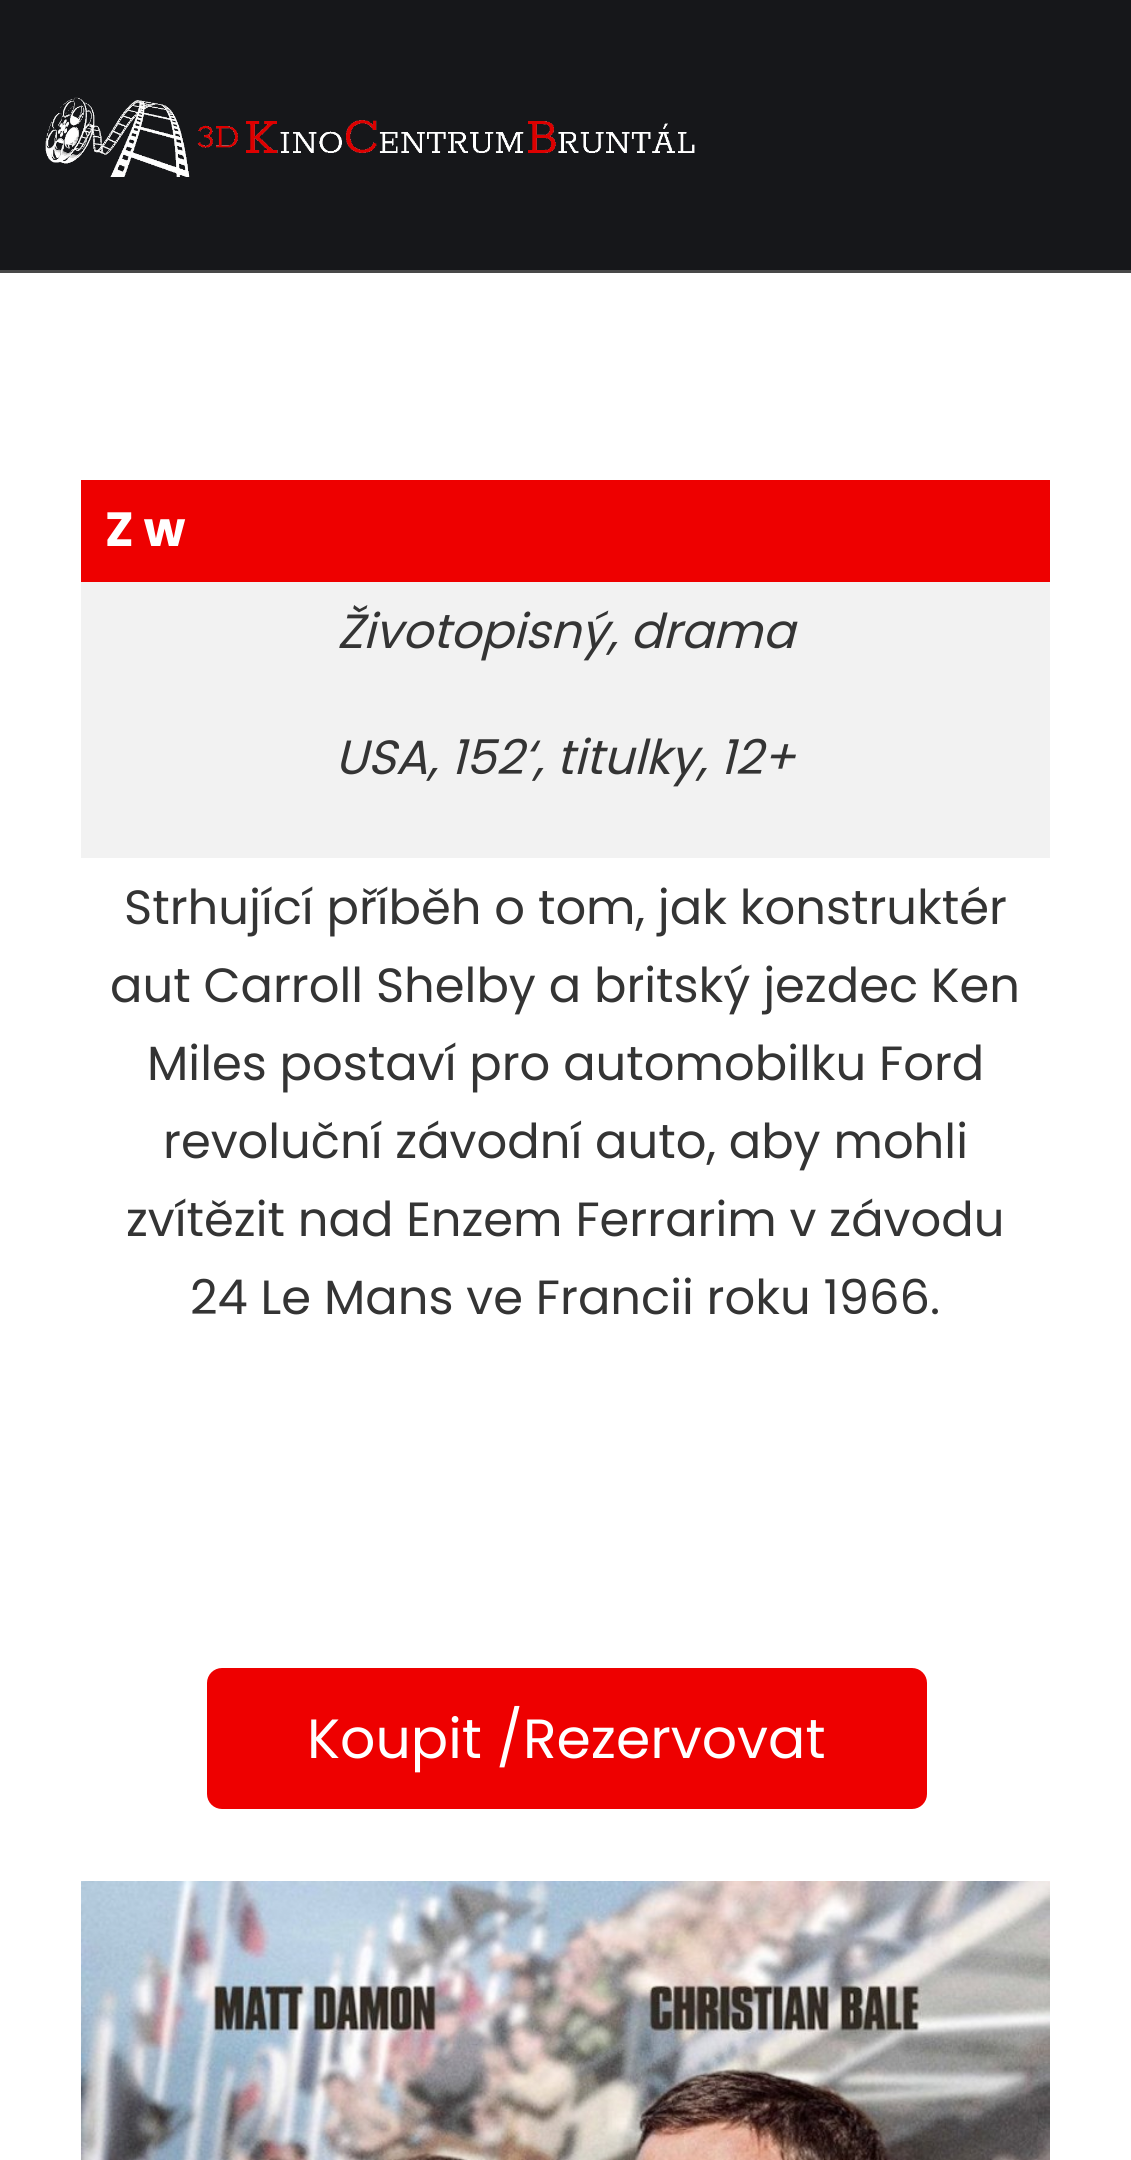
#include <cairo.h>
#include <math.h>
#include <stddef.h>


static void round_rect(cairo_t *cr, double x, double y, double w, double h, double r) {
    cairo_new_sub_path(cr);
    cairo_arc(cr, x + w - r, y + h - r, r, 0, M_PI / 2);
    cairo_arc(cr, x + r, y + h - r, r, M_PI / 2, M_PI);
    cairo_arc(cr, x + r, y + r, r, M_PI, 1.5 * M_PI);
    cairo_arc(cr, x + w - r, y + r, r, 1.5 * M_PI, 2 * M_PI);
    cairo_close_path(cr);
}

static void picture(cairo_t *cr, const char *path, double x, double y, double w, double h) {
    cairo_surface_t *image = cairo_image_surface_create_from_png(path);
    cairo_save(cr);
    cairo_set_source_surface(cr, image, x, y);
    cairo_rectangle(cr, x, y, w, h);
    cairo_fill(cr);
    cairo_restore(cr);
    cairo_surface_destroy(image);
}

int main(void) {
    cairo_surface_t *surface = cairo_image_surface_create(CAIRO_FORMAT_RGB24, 1131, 2160);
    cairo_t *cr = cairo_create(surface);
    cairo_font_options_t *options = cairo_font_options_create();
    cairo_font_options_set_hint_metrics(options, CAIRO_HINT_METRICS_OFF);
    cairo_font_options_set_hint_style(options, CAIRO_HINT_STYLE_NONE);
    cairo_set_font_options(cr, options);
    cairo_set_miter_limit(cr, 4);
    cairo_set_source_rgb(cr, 1, 1, 1);
    cairo_paint(cr);
    cairo_set_source_rgb(cr, 0.086, 0.09, 0.102);
    cairo_rectangle(cr, 0, 0, 1131, 270);
    cairo_fill(cr);
    cairo_set_source_rgb(cr, 0.282, 0.282, 0.282);
    cairo_rectangle(cr, 0, 270, 1131, 3);
    cairo_fill(cr);
    picture(cr, "img1.png", 45, 97, 650, 80);
    cairo_set_source_rgb(cr, 0.933, 0, 0);
    cairo_rectangle(cr, 81, 480, 969, 102);
    cairo_fill(cr);
    cairo_select_font_face(cr, "Poppins", CAIRO_FONT_SLANT_NORMAL, CAIRO_FONT_WEIGHT_BOLD);
    cairo_set_font_size(cr, 48);
    cairo_set_source_rgb(cr, 1, 1, 1);
    cairo_move_to(cr, 105, 546);
    cairo_show_text(cr, "Z w");
    cairo_set_source_rgb(cr, 0.949, 0.949, 0.949);
    cairo_rectangle(cr, 81, 582, 969, 276);
    cairo_fill(cr);
    cairo_select_font_face(cr, "Poppins", CAIRO_FONT_SLANT_ITALIC, CAIRO_FONT_WEIGHT_NORMAL);
    cairo_set_source_rgb(cr, 0.204, 0.204, 0.204);
    cairo_move_to(cr, 337, 648);
    cairo_show_text(cr, "Životopisný, drama");
    cairo_move_to(cr, 335, 774);
    cairo_show_text(cr, "USA, 152‘, titulky, 12+");
    cairo_select_font_face(cr, "Poppins", CAIRO_FONT_SLANT_NORMAL, CAIRO_FONT_WEIGHT_NORMAL);
    cairo_move_to(cr, 124, 924);
    cairo_show_text(cr, "Strhující příběh o tom, jak konstruktér");
    cairo_move_to(cr, 110, 1002);
    cairo_show_text(cr, "aut Carroll Shelby a britský jezdec Ken");
    cairo_move_to(cr, 147, 1080);
    cairo_show_text(cr, "Miles postaví pro automobilku Ford");
    cairo_move_to(cr, 163, 1158);
    cairo_show_text(cr, "revoluční závodní auto, aby mohli");
    cairo_move_to(cr, 126, 1236);
    cairo_show_text(cr, "zvítězit nad Enzem Ferrarim v závodu");
    cairo_move_to(cr, 190, 1314);
    cairo_show_text(cr, "24 Le Mans ve Francii roku 1966.");
    cairo_set_source_rgb(cr, 0.933, 0, 0);
    round_rect(cr, 208.5, 1669.5, 717, 138, 13.5);
    cairo_fill_preserve(cr);
    cairo_set_line_width(cr, 3);
    cairo_stroke(cr);
    cairo_set_font_size(cr, 55.25);
    cairo_set_source_rgb(cr, 1, 1, 1);
    cairo_move_to(cr, 307, 1758);
    cairo_show_text(cr, "Koupit /Rezervovat");
    picture(cr, "img2.png", 81, 1881, 969, 279);
    cairo_surface_write_to_png(surface, "page.png");
    cairo_font_options_destroy(options);
    cairo_destroy(cr);
    cairo_surface_destroy(surface);
    return 0;
}
